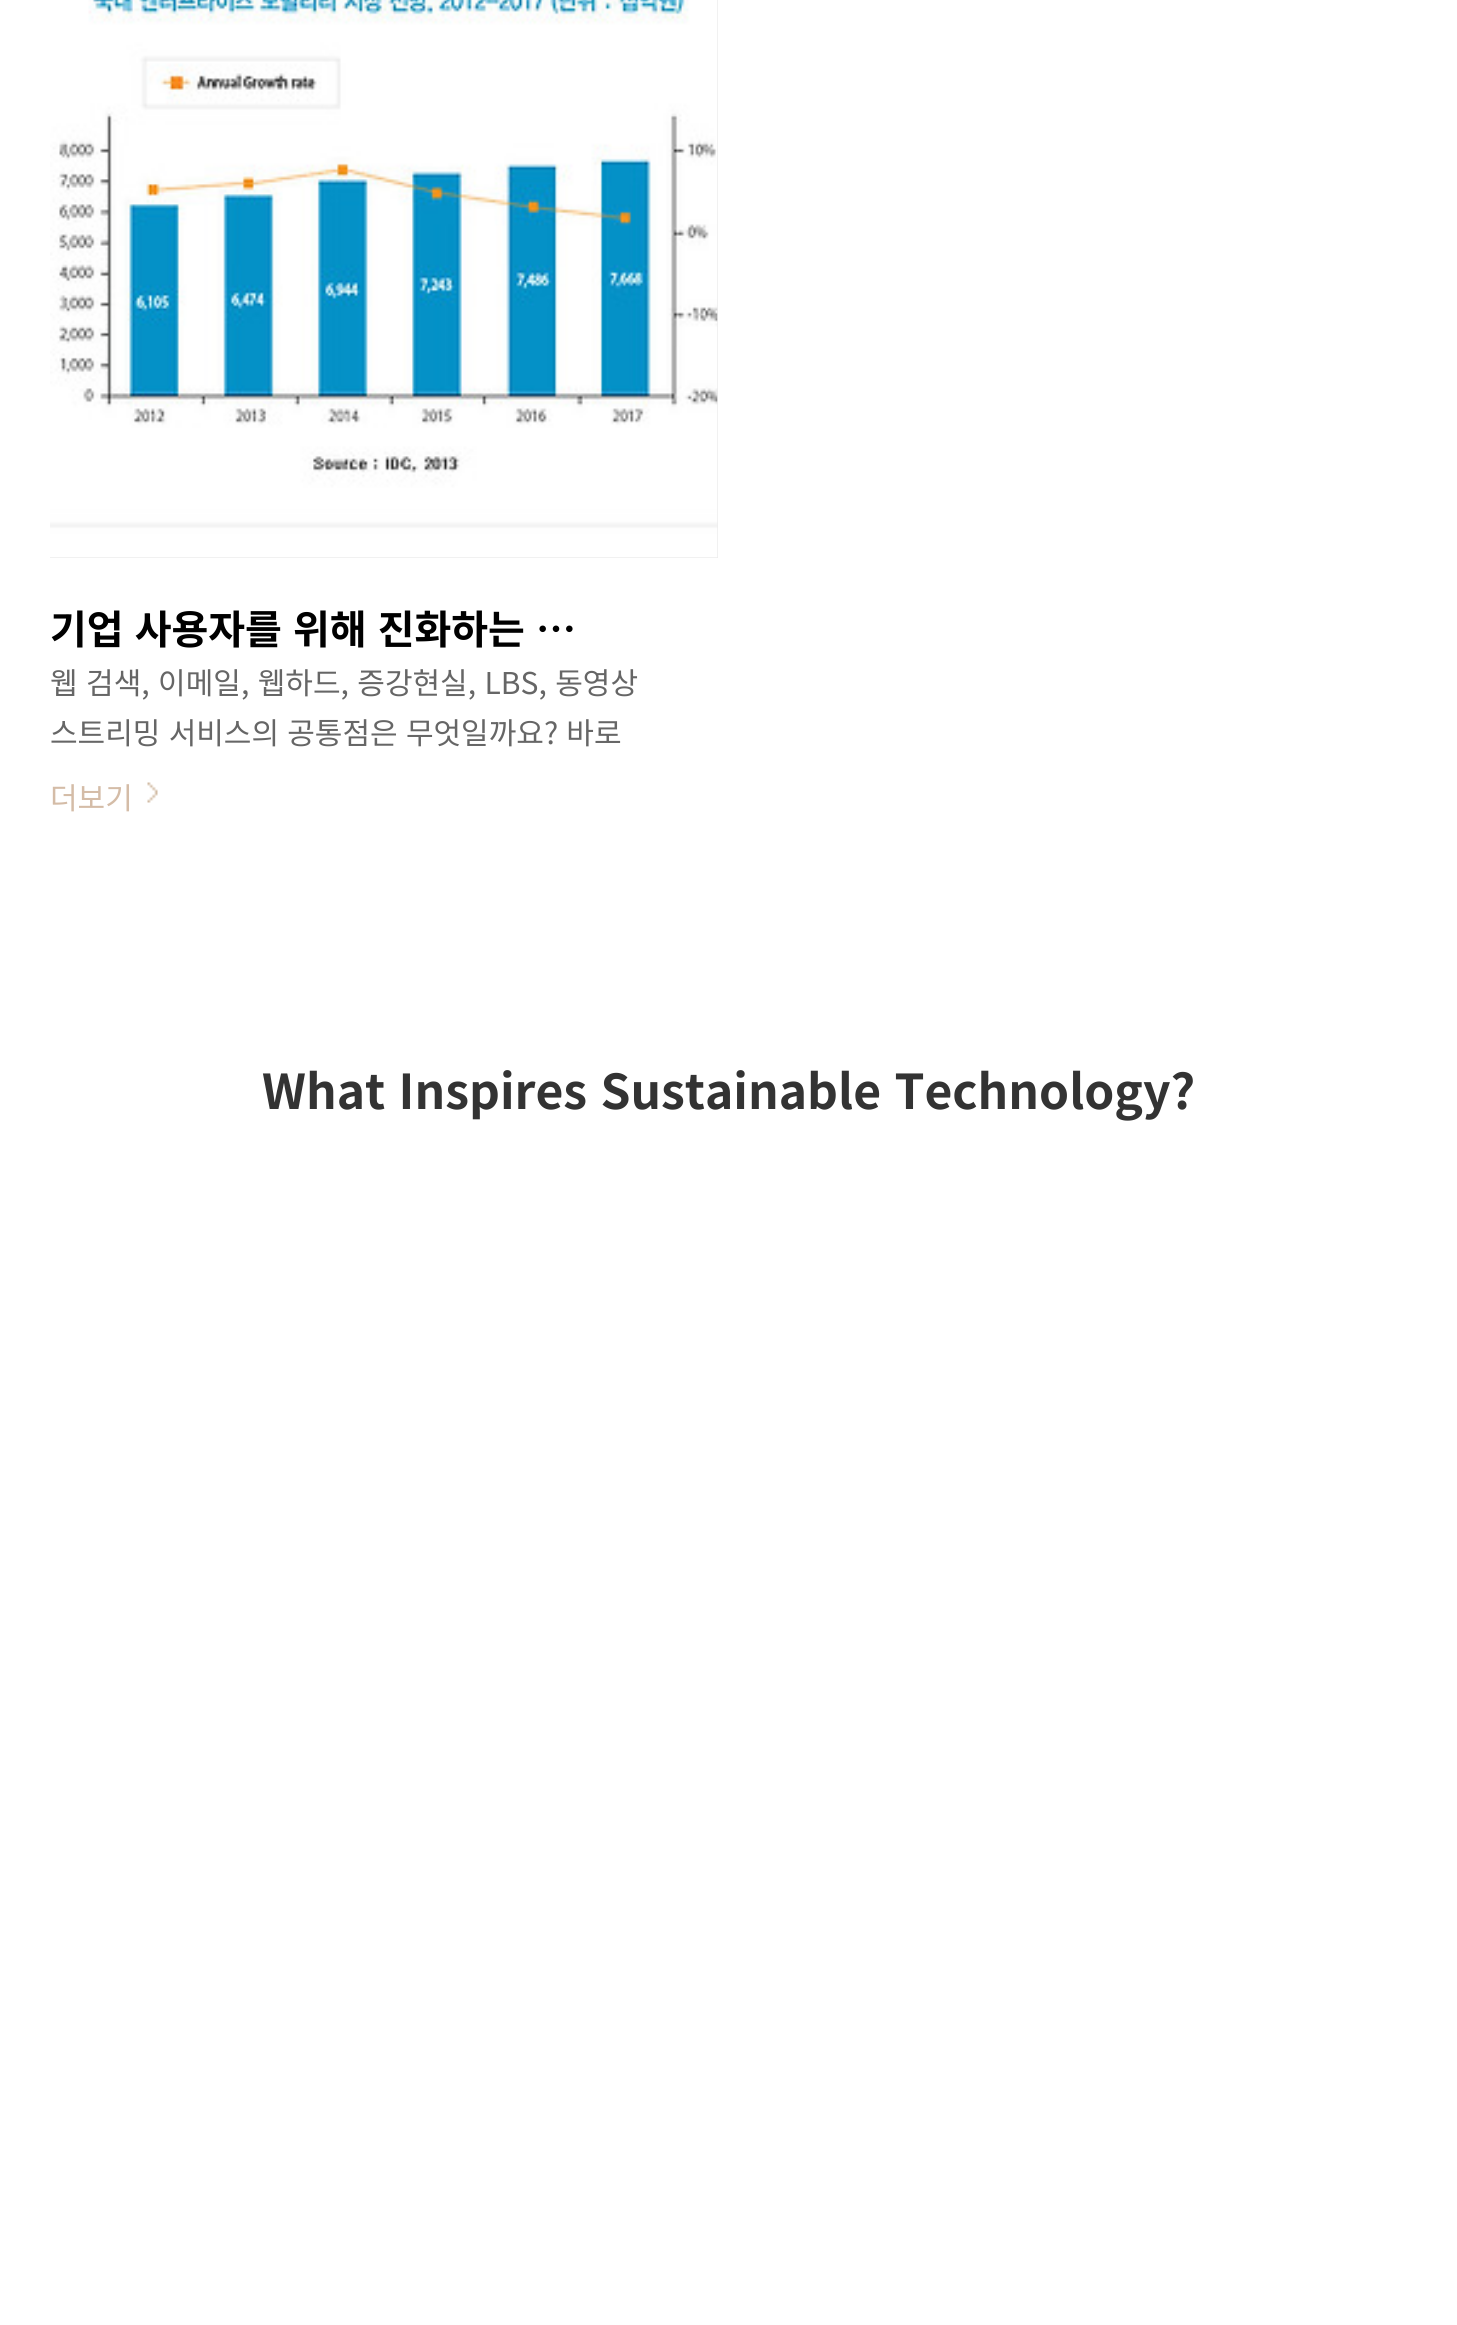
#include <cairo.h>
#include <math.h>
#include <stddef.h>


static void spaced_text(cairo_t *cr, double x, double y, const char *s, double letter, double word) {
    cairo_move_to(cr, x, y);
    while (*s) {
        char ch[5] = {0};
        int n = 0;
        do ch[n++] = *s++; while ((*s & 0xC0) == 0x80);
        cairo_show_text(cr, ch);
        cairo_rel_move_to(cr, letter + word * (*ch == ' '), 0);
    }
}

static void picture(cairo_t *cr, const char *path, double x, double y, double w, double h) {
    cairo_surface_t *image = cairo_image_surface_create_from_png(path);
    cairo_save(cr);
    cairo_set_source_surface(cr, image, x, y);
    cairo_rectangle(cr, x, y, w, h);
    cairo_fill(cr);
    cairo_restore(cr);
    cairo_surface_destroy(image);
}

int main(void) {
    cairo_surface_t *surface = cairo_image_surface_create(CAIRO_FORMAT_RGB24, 1457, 2325);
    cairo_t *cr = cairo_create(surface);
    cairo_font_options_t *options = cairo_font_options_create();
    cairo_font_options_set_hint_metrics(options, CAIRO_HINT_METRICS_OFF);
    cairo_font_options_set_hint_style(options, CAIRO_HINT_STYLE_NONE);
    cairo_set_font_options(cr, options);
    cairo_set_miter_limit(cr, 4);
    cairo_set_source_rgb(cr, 1, 1, 1);
    cairo_paint(cr);
    cairo_set_source_rgb(cr, 0.922, 0.922, 0.922);
    cairo_rectangle(cr, 50, 0, 668, 558);
    cairo_fill(cr);
    picture(cr, "img1.png", 50, 0, 668, 558);
    cairo_select_font_face(cr, "Noto Sans KR", CAIRO_FONT_SLANT_NORMAL, CAIRO_FONT_WEIGHT_BOLD);
    cairo_set_font_size(cr, 40);
    cairo_set_source_rgb(cr, 0, 0, 0);
    spaced_text(cr, 50, 644, "기업 사용자를 위해 진화하는 …", 0, 2);
    cairo_select_font_face(cr, "Noto Sans KR", CAIRO_FONT_SLANT_NORMAL, CAIRO_FONT_WEIGHT_NORMAL);
    cairo_set_font_size(cr, 30);
    cairo_set_source_rgb(cr, 0.4, 0.4, 0.4);
    spaced_text(cr, 50, 694, "웹 검색, 이메일, 웹하드, 증강현실, LBS, 동영상", 0, 1.75);
    spaced_text(cr, 50, 744, "스트리밍 서비스의 공통점은 무엇일까요? 바로", 0, 1.5);
    cairo_set_source_rgb(cr, 0.831, 0.737, 0.655);
    cairo_move_to(cr, 50, 809);
    cairo_show_text(cr, "더보기");
    picture(cr, "img2.png", 147, 782, 11, 21);
    cairo_select_font_face(cr, "Noto Sans KR", CAIRO_FONT_SLANT_NORMAL, CAIRO_FONT_WEIGHT_BOLD);
    cairo_set_font_size(cr, 48);
    cairo_set_source_rgb(cr, 0.2, 0.2, 0.2);
    spaced_text(cr, 262, 1109, "What Inspires Sustainable Technology?", 0, 2.5);
    cairo_surface_write_to_png(surface, "page.png");
    cairo_font_options_destroy(options);
    cairo_destroy(cr);
    cairo_surface_destroy(surface);
    return 0;
}
